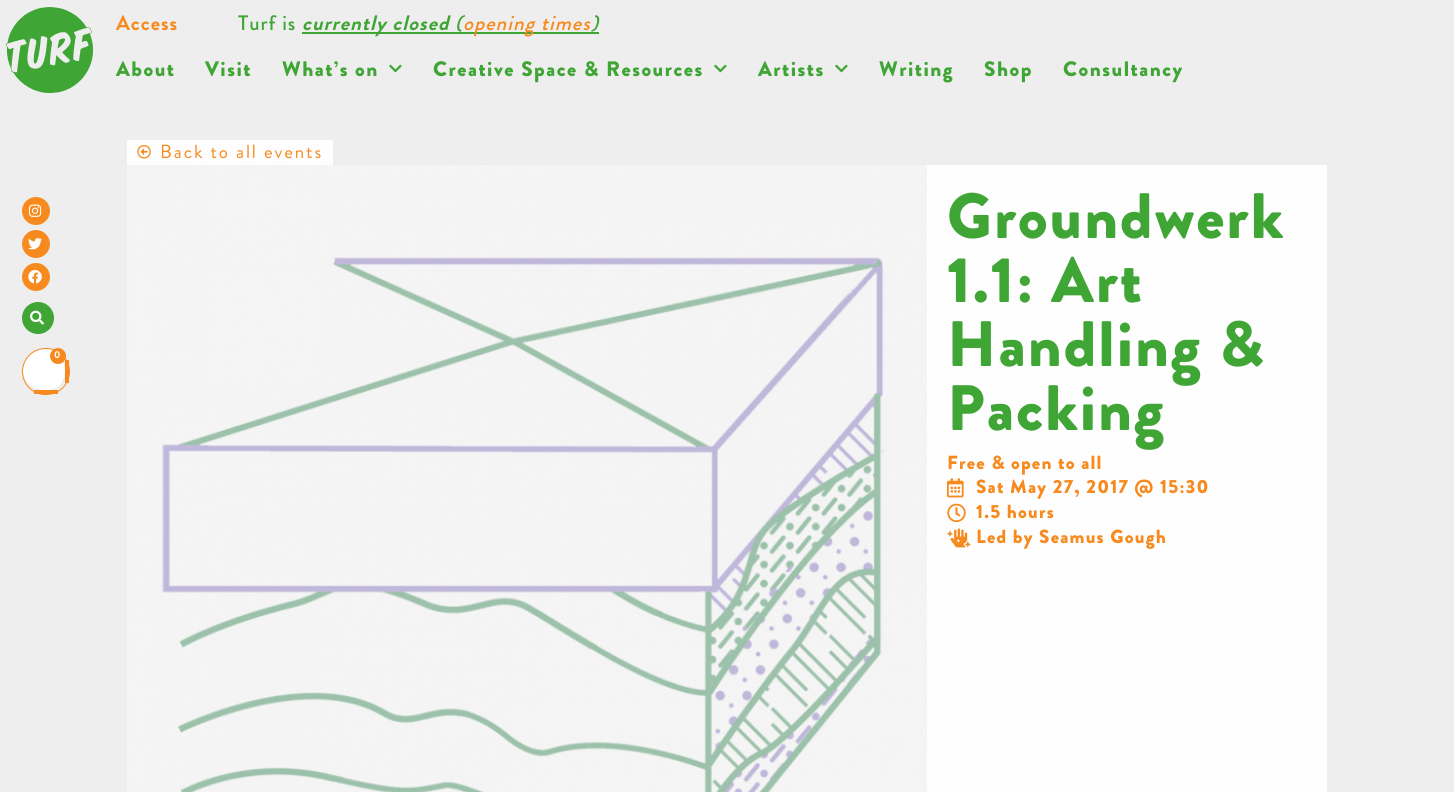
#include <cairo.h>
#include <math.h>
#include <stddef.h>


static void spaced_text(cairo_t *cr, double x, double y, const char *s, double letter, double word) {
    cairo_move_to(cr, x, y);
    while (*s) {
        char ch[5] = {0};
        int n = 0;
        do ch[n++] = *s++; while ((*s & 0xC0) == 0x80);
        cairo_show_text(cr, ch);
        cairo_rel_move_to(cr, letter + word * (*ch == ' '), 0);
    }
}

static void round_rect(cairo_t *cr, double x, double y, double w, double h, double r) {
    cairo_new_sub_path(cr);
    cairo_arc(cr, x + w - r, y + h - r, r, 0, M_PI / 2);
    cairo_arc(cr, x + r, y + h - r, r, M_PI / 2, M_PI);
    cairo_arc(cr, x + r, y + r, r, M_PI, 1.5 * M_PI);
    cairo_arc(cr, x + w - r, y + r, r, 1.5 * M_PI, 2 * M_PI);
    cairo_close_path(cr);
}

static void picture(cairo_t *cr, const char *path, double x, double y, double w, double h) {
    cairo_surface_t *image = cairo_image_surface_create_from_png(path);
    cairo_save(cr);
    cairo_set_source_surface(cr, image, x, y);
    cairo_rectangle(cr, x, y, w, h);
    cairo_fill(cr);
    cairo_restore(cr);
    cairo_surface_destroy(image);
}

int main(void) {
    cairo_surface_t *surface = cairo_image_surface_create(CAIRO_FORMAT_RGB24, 1454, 792);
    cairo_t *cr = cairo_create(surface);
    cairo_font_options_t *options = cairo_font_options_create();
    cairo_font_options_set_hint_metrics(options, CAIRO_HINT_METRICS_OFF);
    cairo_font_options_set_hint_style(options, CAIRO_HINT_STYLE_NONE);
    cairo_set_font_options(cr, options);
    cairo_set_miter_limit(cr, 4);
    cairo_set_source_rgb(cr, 0.933, 0.933, 0.933);
    cairo_paint(cr);
    picture(cr, "img1.png", 6, 7, 88, 86);
    cairo_select_font_face(cr, "Brandon Grotesque", CAIRO_FONT_SLANT_NORMAL, CAIRO_FONT_WEIGHT_BOLD);
    cairo_set_font_size(cr, 20.9);
    cairo_set_source_rgb(cr, 0.965, 0.541, 0.118);
    spaced_text(cr, 116, 30, "Access", 1, 0);
    cairo_select_font_face(cr, "Brandon Grotesque Medium", CAIRO_FONT_SLANT_NORMAL, CAIRO_FONT_WEIGHT_NORMAL);
    cairo_set_source_rgb(cr, 0.247, 0.647, 0.208);
    spaced_text(cr, 238, 30, "Turf is", 1, 0);
    cairo_rectangle(cr, 302, 32, 147, 2);
    cairo_fill(cr);
    cairo_select_font_face(cr, "Brandon Grotesque", CAIRO_FONT_SLANT_ITALIC, CAIRO_FONT_WEIGHT_BOLD);
    spaced_text(cr, 302, 30, "currently closed", 1, 0);
    cairo_rectangle(cr, 449, 32, 150, 2);
    cairo_fill(cr);
    cairo_select_font_face(cr, "Brandon Grotesque Medium", CAIRO_FONT_SLANT_ITALIC, CAIRO_FONT_WEIGHT_NORMAL);
    spaced_text(cr, 455, 30, "(", 1, 0);
    cairo_set_source_rgb(cr, 0.965, 0.541, 0.118);
    spaced_text(cr, 463, 30, "opening times", 1, 0);
    cairo_set_source_rgb(cr, 0.247, 0.647, 0.208);
    spaced_text(cr, 591, 30, ")", 1, 0);
    cairo_select_font_face(cr, "Brandon Grotesque Black", CAIRO_FONT_SLANT_NORMAL, CAIRO_FONT_WEIGHT_NORMAL);
    spaced_text(cr, 116, 76, "About", 1.5, 0);
    spaced_text(cr, 205, 76, "Visit", 1.5, 0);
    spaced_text(cr, 282, 76, "What’s on", 1.5, 0);
    picture(cr, "img2.png", 389, 64, 13, 9);
    spaced_text(cr, 433, 76, "Creative Space & Resources", 1.5, 0);
    picture(cr, "img2.png", 714, 64, 13, 9);
    spaced_text(cr, 758, 76, "Artists", 1.5, 0);
    picture(cr, "img2.png", 835, 64, 13, 9);
    spaced_text(cr, 879, 76, "Writing", 1.5, 0);
    spaced_text(cr, 984, 76, "Shop", 1.5, 0);
    spaced_text(cr, 1063, 76, "Consultancy", 1.5, 0);
    cairo_set_source_rgb(cr, 0.965, 0.541, 0.118);
    cairo_new_path(cr);
    cairo_arc(cr, 36, 211, 14, 0, 2 * M_PI);
    cairo_fill(cr);
    picture(cr, "img3.png", 28, 204, 14, 13);
    cairo_arc(cr, 36, 244, 14, 0, 2 * M_PI);
    cairo_fill(cr);
    picture(cr, "img4.png", 28, 238, 14, 12);
    cairo_arc(cr, 36, 277, 14, 0, 2 * M_PI);
    cairo_fill(cr);
    picture(cr, "img5.png", 28, 270, 14, 14);
    cairo_set_source_rgb(cr, 0.247, 0.647, 0.208);
    cairo_arc(cr, 38, 318, 16, 0, 2 * M_PI);
    cairo_fill(cr);
    picture(cr, "img6.png", 30, 310, 14, 15);
    cairo_set_source_rgb(cr, 1, 1, 1);
    cairo_new_path(cr);
    cairo_move_to(cr, 46, 349);
    cairo_curve_to(cr, 64, 349, 72, 376, 57, 387);
    cairo_curve_to(cr, 54, 389, 49, 390, 46, 390);
    cairo_curve_to(cr, 12, 388, 19, 349, 46, 349);
    cairo_close_path(cr);
    cairo_fill(cr);
    round_rect(cr, 22.5, 348.5, 47, 46, 23);
    cairo_set_source_rgb(cr, 0.965, 0.541, 0.118);
    cairo_set_line_width(cr, 1);
    cairo_stroke(cr);
    cairo_rectangle(cr, 65, 360, 4, 23);
    cairo_fill(cr);
    cairo_rectangle(cr, 34, 390, 24, 4);
    cairo_fill(cr);
    cairo_arc(cr, 58, 356, 8, 0, 2 * M_PI);
    cairo_fill(cr);
    cairo_select_font_face(cr, "Brandon Grotesque", CAIRO_FONT_SLANT_NORMAL, CAIRO_FONT_WEIGHT_BOLD);
    cairo_set_font_size(cr, 10);
    cairo_set_source_rgb(cr, 1, 1, 1);
    spaced_text(cr, 54, 358, "0", 1.2, 0);
    cairo_set_source_rgb(cr, 0.996, 0.996, 0.996);
    cairo_rectangle(cr, 127, 140, 206, 25);
    cairo_fill(cr);
    picture(cr, "img7.png", 137, 145, 14, 14);
    cairo_select_font_face(cr, "Brandon Grotesque", CAIRO_FONT_SLANT_NORMAL, CAIRO_FONT_WEIGHT_NORMAL);
    cairo_set_font_size(cr, 19);
    cairo_set_source_rgb(cr, 0.965, 0.541, 0.118);
    spaced_text(cr, 160, 158, "Back to all events", 1.9, 0);
    picture(cr, "img8.png", 127, 165, 800, 627);
    cairo_set_source_rgb(cr, 0.996, 0.996, 0.996);
    cairo_rectangle(cr, 927, 165, 400, 627);
    cairo_fill(cr);
    cairo_select_font_face(cr, "Brandon Grotesque Black", CAIRO_FONT_SLANT_NORMAL, CAIRO_FONT_WEIGHT_NORMAL);
    cairo_set_font_size(cr, 64);
    cairo_set_source_rgb(cr, 0.247, 0.647, 0.208);
    spaced_text(cr, 947, 238, "Groundwerk", 2, 0);
    spaced_text(cr, 947, 302, "1.1: Art", 2, 0);
    spaced_text(cr, 947, 366, "Handling &", 2, 0);
    spaced_text(cr, 947, 430, "Packing", 2, 0);
    cairo_set_font_size(cr, 19);
    cairo_set_source_rgb(cr, 0.965, 0.541, 0.118);
    spaced_text(cr, 947, 469, "Free & open to all", 1.2, 0);
    picture(cr, "img9.png", 947, 478, 17, 20);
    spaced_text(cr, 976, 493, "Sat May 27, 2017 @ 15:30", 1.2, 0);
    picture(cr, "img10.png", 947, 503, 19, 20);
    spaced_text(cr, 976, 518, "1.5 hours", 1.2, 0);
    picture(cr, "img11.png", 947, 528, 24, 20);
    spaced_text(cr, 976, 543, "Led by Seamus Gough", 1.2, 0);
    cairo_surface_write_to_png(surface, "page.png");
    cairo_font_options_destroy(options);
    cairo_destroy(cr);
    cairo_surface_destroy(surface);
    return 0;
}
